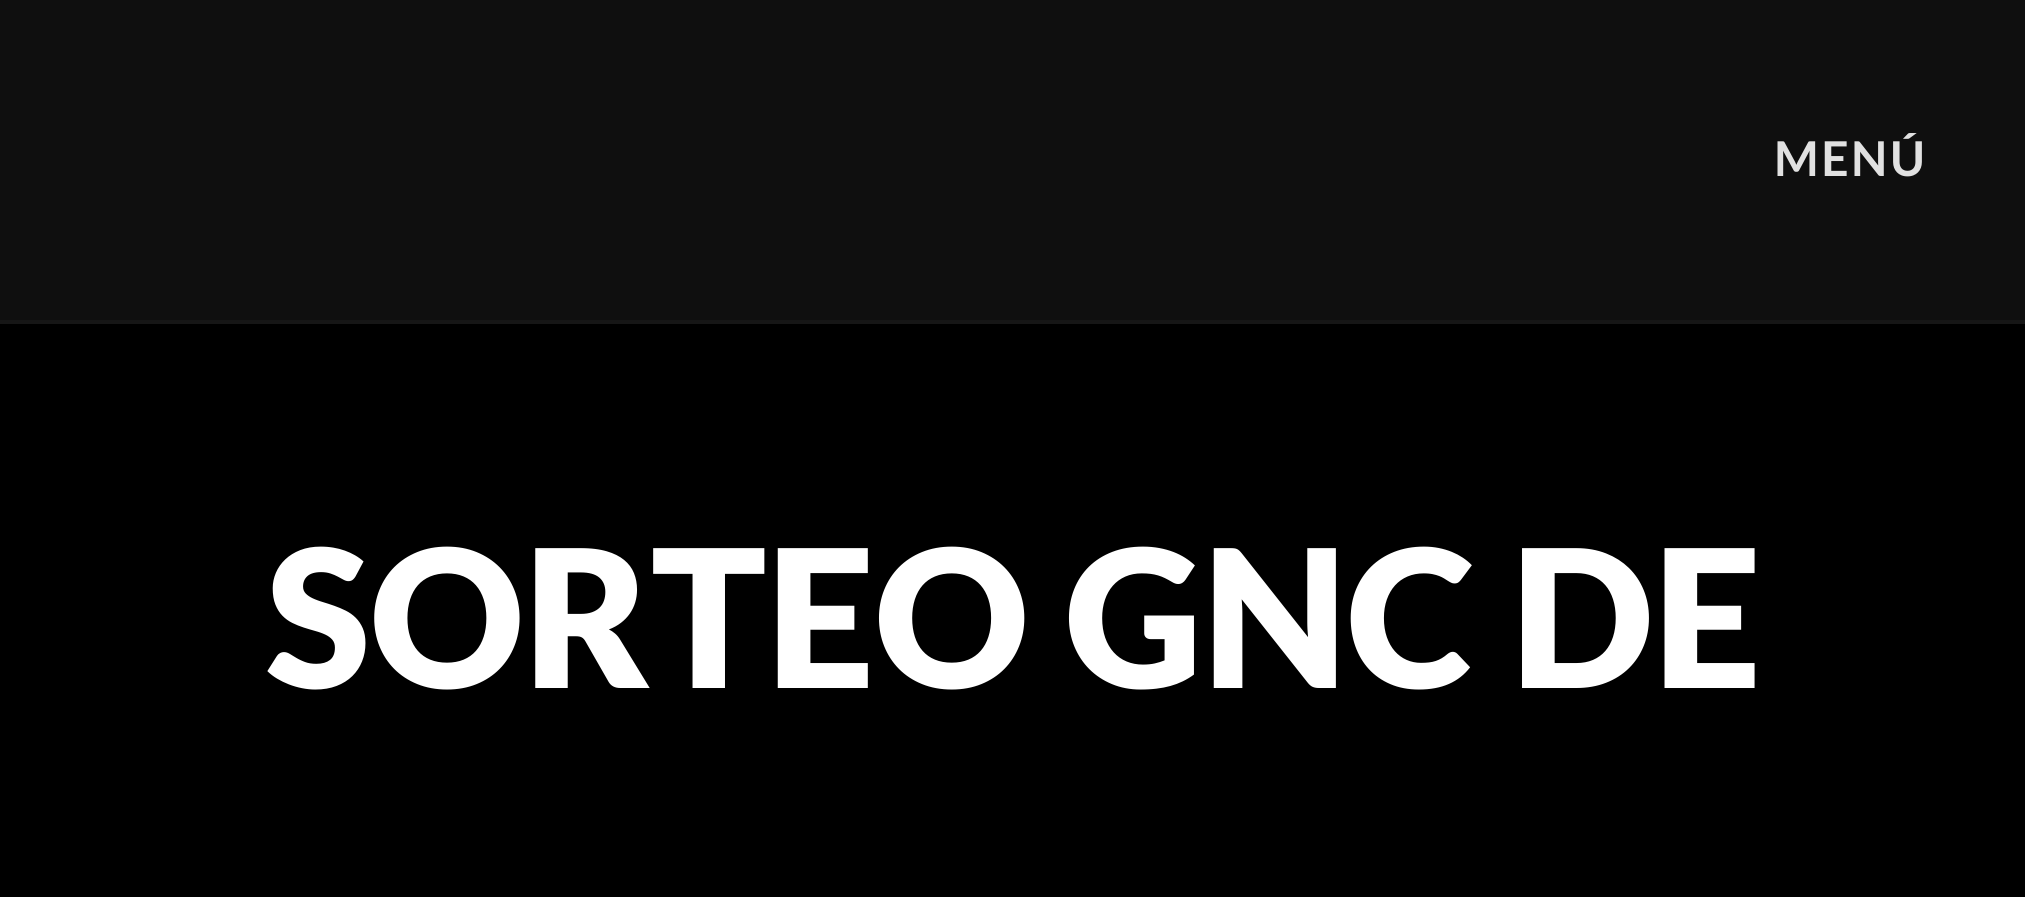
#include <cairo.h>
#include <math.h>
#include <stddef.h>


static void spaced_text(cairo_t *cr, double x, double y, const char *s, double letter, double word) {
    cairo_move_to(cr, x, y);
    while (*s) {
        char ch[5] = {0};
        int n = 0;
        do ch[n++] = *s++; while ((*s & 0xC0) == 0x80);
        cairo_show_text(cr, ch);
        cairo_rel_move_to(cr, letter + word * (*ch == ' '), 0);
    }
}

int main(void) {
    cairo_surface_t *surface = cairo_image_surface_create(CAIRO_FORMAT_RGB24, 2025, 897);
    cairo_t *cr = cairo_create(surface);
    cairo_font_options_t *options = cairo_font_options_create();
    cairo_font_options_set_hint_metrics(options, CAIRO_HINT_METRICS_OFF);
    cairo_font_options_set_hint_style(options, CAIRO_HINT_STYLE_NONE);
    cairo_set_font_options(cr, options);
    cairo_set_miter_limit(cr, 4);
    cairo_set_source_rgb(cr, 0, 0, 0);
    cairo_paint(cr);
    cairo_set_source_rgb(cr, 0.059, 0.059, 0.059);
    cairo_rectangle(cr, 0, 0, 2025, 320);
    cairo_fill(cr);
    cairo_set_source_rgb(cr, 0.086, 0.086, 0.086);
    cairo_rectangle(cr, 0, 320, 2025, 4);
    cairo_fill(cr);
    cairo_select_font_face(cr, "Lato", CAIRO_FONT_SLANT_NORMAL, CAIRO_FONT_WEIGHT_BOLD);
    cairo_set_font_size(cr, 48);
    cairo_set_source_rgb(cr, 0.882, 0.882, 0.882);
    spaced_text(cr, 1774, 176, "MENÚ", 2.5, 0);
    cairo_select_font_face(cr, "Lato Black", CAIRO_FONT_SLANT_NORMAL, CAIRO_FONT_WEIGHT_NORMAL);
    cairo_set_font_size(cr, 192);
    cairo_set_source_rgb(cr, 1, 1, 1);
    cairo_move_to(cr, 266, 688);
    cairo_show_text(cr, "SORTEO GNC DE");
    cairo_surface_write_to_png(surface, "page.png");
    cairo_font_options_destroy(options);
    cairo_destroy(cr);
    cairo_surface_destroy(surface);
    return 0;
}
